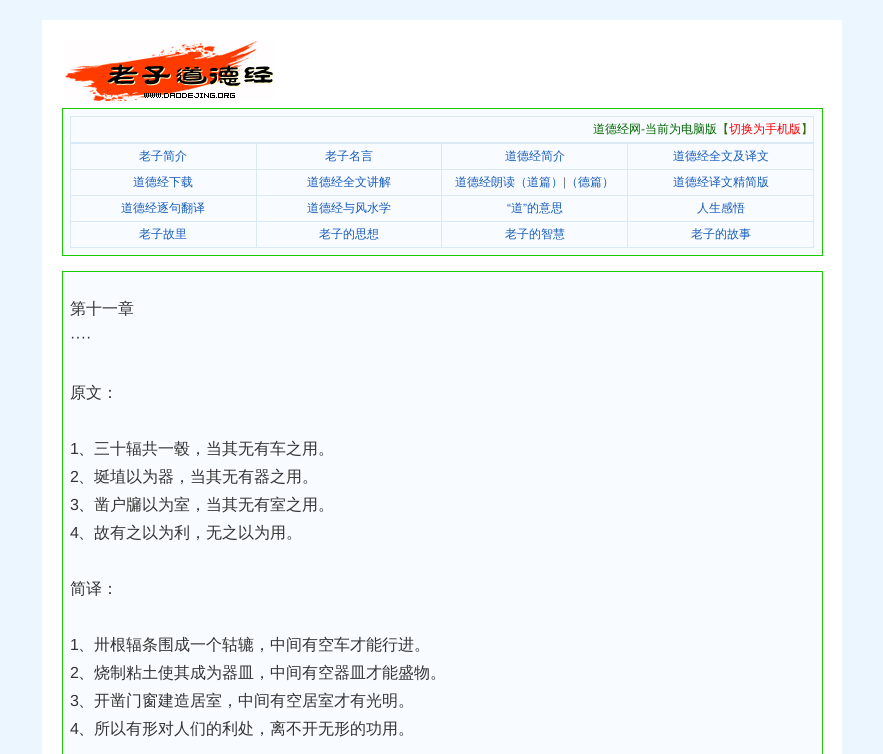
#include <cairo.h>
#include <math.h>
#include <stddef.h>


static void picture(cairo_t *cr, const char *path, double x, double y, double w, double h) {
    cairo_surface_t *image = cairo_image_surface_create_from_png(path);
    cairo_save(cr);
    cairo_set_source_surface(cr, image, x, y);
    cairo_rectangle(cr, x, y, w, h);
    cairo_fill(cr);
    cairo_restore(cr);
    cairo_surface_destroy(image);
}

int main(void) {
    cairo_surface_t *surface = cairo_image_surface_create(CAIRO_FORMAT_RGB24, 883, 754);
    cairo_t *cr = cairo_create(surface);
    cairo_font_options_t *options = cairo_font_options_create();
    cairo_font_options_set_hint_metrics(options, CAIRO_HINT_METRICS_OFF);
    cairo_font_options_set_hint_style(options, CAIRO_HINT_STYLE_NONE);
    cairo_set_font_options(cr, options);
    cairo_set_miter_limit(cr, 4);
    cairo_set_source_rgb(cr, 0.925, 0.961, 1);
    cairo_paint(cr);
    cairo_set_source_rgb(cr, 1, 1, 1);
    cairo_rectangle(cr, 42, 20, 800, 734);
    cairo_fill(cr);
    picture(cr, "img1.png", 65, 41, 209, 60);
    cairo_set_source_rgb(cr, 0.969, 0.984, 1);
    cairo_rectangle(cr, 62.5, 108.5, 760, 147);
    cairo_fill_preserve(cr);
    cairo_set_source_rgb(cr, 0.098, 0.8, 0.004);
    cairo_set_line_width(cr, 1);
    cairo_stroke(cr);
    cairo_set_source_rgb(cr, 0.855, 0.914, 0.969);
    cairo_rectangle(cr, 70, 116, 744, 1);
    cairo_fill(cr);
    cairo_rectangle(cr, 813, 116, 1, 27);
    cairo_fill(cr);
    cairo_rectangle(cr, 70, 142, 744, 2);
    cairo_fill(cr);
    cairo_rectangle(cr, 70, 116, 1, 27);
    cairo_fill(cr);
    cairo_select_font_face(cr, "WenQuanYi Zen Hei Medium", CAIRO_FONT_SLANT_NORMAL, CAIRO_FONT_WEIGHT_NORMAL);
    cairo_set_font_size(cr, 12);
    cairo_set_source_rgb(cr, 0, 0.4, 0);
    cairo_move_to(cr, 593, 133);
    cairo_show_text(cr, "道德经网");
    cairo_select_font_face(cr, "Liberation Sans", CAIRO_FONT_SLANT_NORMAL, CAIRO_FONT_WEIGHT_NORMAL);
    cairo_move_to(cr, 641, 133);
    cairo_show_text(cr, "-");
    cairo_select_font_face(cr, "WenQuanYi Zen Hei Medium", CAIRO_FONT_SLANT_NORMAL, CAIRO_FONT_WEIGHT_NORMAL);
    cairo_move_to(cr, 645, 133);
    cairo_show_text(cr, "当前为电脑版");
    cairo_set_source_rgb(cr, 0.2, 0.4, 0);
    cairo_move_to(cr, 717, 133);
    cairo_show_text(cr, "【");
    cairo_set_source_rgb(cr, 1, 0, 0);
    cairo_move_to(cr, 729, 133);
    cairo_show_text(cr, "切换为手机版");
    cairo_set_source_rgb(cr, 0.2, 0.4, 0);
    cairo_move_to(cr, 801, 133);
    cairo_show_text(cr, "】");
    cairo_set_source_rgb(cr, 0.855, 0.914, 0.969);
    cairo_rectangle(cr, 813, 143, 1, 105);
    cairo_fill(cr);
    cairo_rectangle(cr, 70, 247, 744, 1);
    cairo_fill(cr);
    cairo_rectangle(cr, 70, 143, 1, 105);
    cairo_fill(cr);
    cairo_set_source_rgb(cr, 0.09, 0.361, 0.733);
    cairo_move_to(cr, 139, 160);
    cairo_show_text(cr, "老子简介");
    cairo_set_source_rgb(cr, 0.855, 0.914, 0.969);
    cairo_rectangle(cr, 627, 169, 187, 1);
    cairo_fill(cr);
    cairo_rectangle(cr, 627, 195, 187, 1);
    cairo_fill(cr);
    cairo_rectangle(cr, 627, 221, 187, 1);
    cairo_fill(cr);
    cairo_rectangle(cr, 627, 221, 1, 27);
    cairo_fill(cr);
    cairo_rectangle(cr, 441, 221, 187, 1);
    cairo_fill(cr);
    cairo_rectangle(cr, 627, 195, 1, 27);
    cairo_fill(cr);
    cairo_rectangle(cr, 441, 195, 187, 1);
    cairo_fill(cr);
    cairo_rectangle(cr, 627, 169, 1, 27);
    cairo_fill(cr);
    cairo_rectangle(cr, 441, 169, 187, 1);
    cairo_fill(cr);
    cairo_rectangle(cr, 441, 221, 1, 27);
    cairo_fill(cr);
    cairo_rectangle(cr, 256, 221, 186, 1);
    cairo_fill(cr);
    cairo_rectangle(cr, 441, 195, 1, 27);
    cairo_fill(cr);
    cairo_rectangle(cr, 256, 195, 186, 1);
    cairo_fill(cr);
    cairo_rectangle(cr, 441, 169, 1, 27);
    cairo_fill(cr);
    cairo_rectangle(cr, 256, 169, 186, 1);
    cairo_fill(cr);
    cairo_rectangle(cr, 256, 221, 1, 27);
    cairo_fill(cr);
    cairo_rectangle(cr, 70, 221, 187, 1);
    cairo_fill(cr);
    cairo_rectangle(cr, 256, 195, 1, 27);
    cairo_fill(cr);
    cairo_rectangle(cr, 70, 195, 187, 1);
    cairo_fill(cr);
    cairo_rectangle(cr, 256, 169, 1, 27);
    cairo_fill(cr);
    cairo_rectangle(cr, 70, 169, 187, 1);
    cairo_fill(cr);
    cairo_rectangle(cr, 256, 143, 1, 27);
    cairo_fill(cr);
    cairo_set_source_rgb(cr, 0.09, 0.361, 0.733);
    cairo_move_to(cr, 325, 160);
    cairo_show_text(cr, "老子名言");
    cairo_set_source_rgb(cr, 0.855, 0.914, 0.969);
    cairo_rectangle(cr, 441, 143, 1, 27);
    cairo_fill(cr);
    cairo_set_source_rgb(cr, 0.09, 0.361, 0.733);
    cairo_move_to(cr, 505, 160);
    cairo_show_text(cr, "道德经简介");
    cairo_set_source_rgb(cr, 0.855, 0.914, 0.969);
    cairo_rectangle(cr, 627, 143, 1, 27);
    cairo_fill(cr);
    cairo_set_source_rgb(cr, 0.09, 0.361, 0.733);
    cairo_move_to(cr, 673, 160);
    cairo_show_text(cr, "道德经全文及译文");
    cairo_move_to(cr, 133, 186);
    cairo_show_text(cr, "道德经下载");
    cairo_move_to(cr, 307, 186);
    cairo_show_text(cr, "道德经全文讲解");
    cairo_move_to(cr, 455, 186);
    cairo_show_text(cr, "道德经朗读（道篇）");
    cairo_select_font_face(cr, "Liberation Sans", CAIRO_FONT_SLANT_NORMAL, CAIRO_FONT_WEIGHT_NORMAL);
    cairo_set_source_rgb(cr, 0.471, 0.471, 0.471);
    cairo_move_to(cr, 563, 186);
    cairo_show_text(cr, "|");
    cairo_select_font_face(cr, "WenQuanYi Zen Hei Medium", CAIRO_FONT_SLANT_NORMAL, CAIRO_FONT_WEIGHT_NORMAL);
    cairo_set_source_rgb(cr, 0.09, 0.361, 0.733);
    cairo_move_to(cr, 566, 186);
    cairo_show_text(cr, "（德篇）");
    cairo_move_to(cr, 673, 186);
    cairo_show_text(cr, "道德经译文精简版");
    cairo_move_to(cr, 121, 212);
    cairo_show_text(cr, "道德经逐句翻译");
    cairo_move_to(cr, 307, 212);
    cairo_show_text(cr, "道德经与风水学");
    cairo_select_font_face(cr, "Liberation Sans", CAIRO_FONT_SLANT_NORMAL, CAIRO_FONT_WEIGHT_NORMAL);
    cairo_move_to(cr, 507, 212);
    cairo_show_text(cr, "“");
    cairo_select_font_face(cr, "WenQuanYi Zen Hei Medium", CAIRO_FONT_SLANT_NORMAL, CAIRO_FONT_WEIGHT_NORMAL);
    cairo_move_to(cr, 511, 212);
    cairo_show_text(cr, "道");
    cairo_select_font_face(cr, "Liberation Sans", CAIRO_FONT_SLANT_NORMAL, CAIRO_FONT_WEIGHT_NORMAL);
    cairo_move_to(cr, 523, 212);
    cairo_show_text(cr, "”");
    cairo_select_font_face(cr, "WenQuanYi Zen Hei Medium", CAIRO_FONT_SLANT_NORMAL, CAIRO_FONT_WEIGHT_NORMAL);
    cairo_move_to(cr, 527, 212);
    cairo_show_text(cr, "的意思");
    cairo_move_to(cr, 697, 212);
    cairo_show_text(cr, "人生感悟");
    cairo_move_to(cr, 139, 238);
    cairo_show_text(cr, "老子故里");
    cairo_move_to(cr, 319, 238);
    cairo_show_text(cr, "老子的思想");
    cairo_move_to(cr, 505, 238);
    cairo_show_text(cr, "老子的智慧");
    cairo_move_to(cr, 691, 238);
    cairo_show_text(cr, "老子的故事");
    cairo_set_source_rgb(cr, 0.969, 0.984, 1);
    cairo_rectangle(cr, 62.5, 271.5, 760, 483);
    cairo_fill_preserve(cr);
    cairo_set_source_rgb(cr, 0.098, 0.8, 0.004);
    cairo_stroke(cr);
    cairo_set_font_size(cr, 16);
    cairo_set_source_rgb(cr, 0.2, 0.2, 0.2);
    cairo_move_to(cr, 70, 314);
    cairo_show_text(cr, "第十一章");
    cairo_select_font_face(cr, "Liberation Sans", CAIRO_FONT_SLANT_NORMAL, CAIRO_FONT_WEIGHT_NORMAL);
    cairo_move_to(cr, 70, 342);
    cairo_show_text(cr, "····");
    cairo_select_font_face(cr, "WenQuanYi Zen Hei Medium", CAIRO_FONT_SLANT_NORMAL, CAIRO_FONT_WEIGHT_NORMAL);
    cairo_move_to(cr, 70, 398);
    cairo_show_text(cr, "原文：");
    cairo_select_font_face(cr, "Liberation Sans", CAIRO_FONT_SLANT_NORMAL, CAIRO_FONT_WEIGHT_NORMAL);
    cairo_move_to(cr, 70, 454);
    cairo_show_text(cr, "1");
    cairo_select_font_face(cr, "WenQuanYi Zen Hei Medium", CAIRO_FONT_SLANT_NORMAL, CAIRO_FONT_WEIGHT_NORMAL);
    cairo_move_to(cr, 78, 454);
    cairo_show_text(cr, "、三十辐共一毂，当其无有车之用。");
    cairo_select_font_face(cr, "Liberation Sans", CAIRO_FONT_SLANT_NORMAL, CAIRO_FONT_WEIGHT_NORMAL);
    cairo_move_to(cr, 70, 482);
    cairo_show_text(cr, "2");
    cairo_select_font_face(cr, "WenQuanYi Zen Hei Medium", CAIRO_FONT_SLANT_NORMAL, CAIRO_FONT_WEIGHT_NORMAL);
    cairo_move_to(cr, 78, 482);
    cairo_show_text(cr, "、埏埴以为器，当其无有器之用。");
    cairo_select_font_face(cr, "Liberation Sans", CAIRO_FONT_SLANT_NORMAL, CAIRO_FONT_WEIGHT_NORMAL);
    cairo_move_to(cr, 70, 510);
    cairo_show_text(cr, "3");
    cairo_select_font_face(cr, "WenQuanYi Zen Hei Medium", CAIRO_FONT_SLANT_NORMAL, CAIRO_FONT_WEIGHT_NORMAL);
    cairo_move_to(cr, 78, 510);
    cairo_show_text(cr, "、凿户牖以为室，当其无有室之用。");
    cairo_select_font_face(cr, "Liberation Sans", CAIRO_FONT_SLANT_NORMAL, CAIRO_FONT_WEIGHT_NORMAL);
    cairo_move_to(cr, 70, 538);
    cairo_show_text(cr, "4");
    cairo_select_font_face(cr, "WenQuanYi Zen Hei Medium", CAIRO_FONT_SLANT_NORMAL, CAIRO_FONT_WEIGHT_NORMAL);
    cairo_move_to(cr, 78, 538);
    cairo_show_text(cr, "、故有之以为利，无之以为用。");
    cairo_move_to(cr, 70, 594);
    cairo_show_text(cr, "简译：");
    cairo_select_font_face(cr, "Liberation Sans", CAIRO_FONT_SLANT_NORMAL, CAIRO_FONT_WEIGHT_NORMAL);
    cairo_move_to(cr, 70, 650);
    cairo_show_text(cr, "1");
    cairo_select_font_face(cr, "WenQuanYi Zen Hei Medium", CAIRO_FONT_SLANT_NORMAL, CAIRO_FONT_WEIGHT_NORMAL);
    cairo_move_to(cr, 78, 650);
    cairo_show_text(cr, "、卅根辐条围成一个轱辘，中间有空车才能行进。");
    cairo_select_font_face(cr, "Liberation Sans", CAIRO_FONT_SLANT_NORMAL, CAIRO_FONT_WEIGHT_NORMAL);
    cairo_move_to(cr, 70, 678);
    cairo_show_text(cr, "2");
    cairo_select_font_face(cr, "WenQuanYi Zen Hei Medium", CAIRO_FONT_SLANT_NORMAL, CAIRO_FONT_WEIGHT_NORMAL);
    cairo_move_to(cr, 78, 678);
    cairo_show_text(cr, "、烧制粘土使其成为器皿，中间有空器皿才能盛物。");
    cairo_select_font_face(cr, "Liberation Sans", CAIRO_FONT_SLANT_NORMAL, CAIRO_FONT_WEIGHT_NORMAL);
    cairo_move_to(cr, 70, 706);
    cairo_show_text(cr, "3");
    cairo_select_font_face(cr, "WenQuanYi Zen Hei Medium", CAIRO_FONT_SLANT_NORMAL, CAIRO_FONT_WEIGHT_NORMAL);
    cairo_move_to(cr, 78, 706);
    cairo_show_text(cr, "、开凿门窗建造居室，中间有空居室才有光明。");
    cairo_select_font_face(cr, "Liberation Sans", CAIRO_FONT_SLANT_NORMAL, CAIRO_FONT_WEIGHT_NORMAL);
    cairo_move_to(cr, 70, 734);
    cairo_show_text(cr, "4");
    cairo_select_font_face(cr, "WenQuanYi Zen Hei Medium", CAIRO_FONT_SLANT_NORMAL, CAIRO_FONT_WEIGHT_NORMAL);
    cairo_move_to(cr, 78, 734);
    cairo_show_text(cr, "、所以有形对人们的利处，离不开无形的功用。");
    cairo_surface_write_to_png(surface, "page.png");
    cairo_font_options_destroy(options);
    cairo_destroy(cr);
    cairo_surface_destroy(surface);
    return 0;
}
